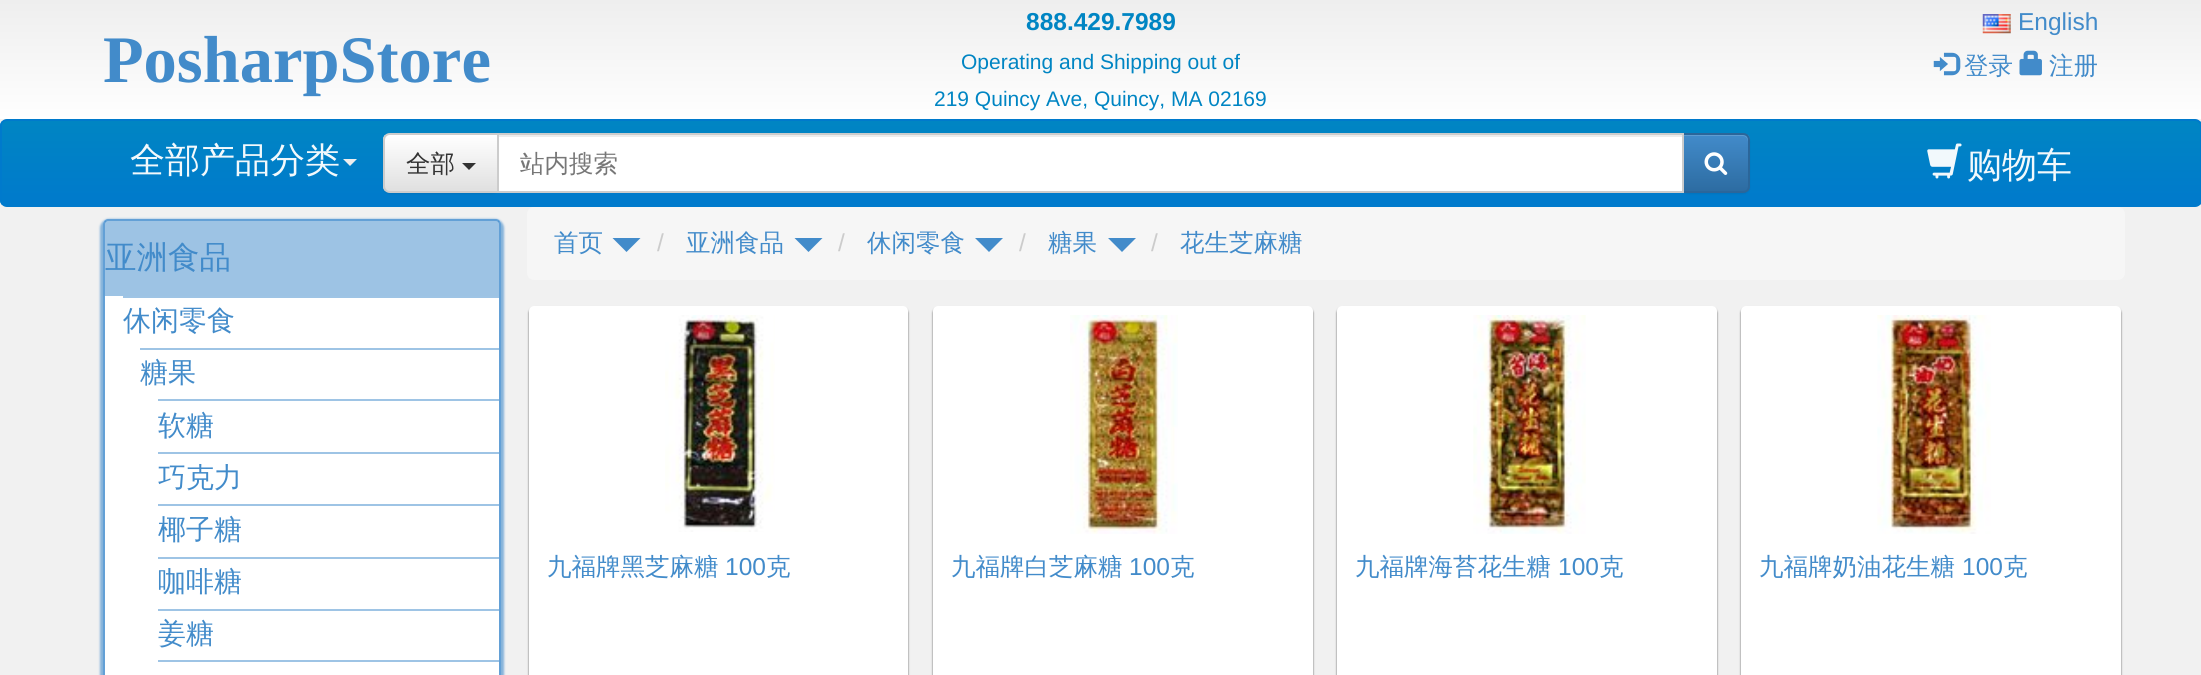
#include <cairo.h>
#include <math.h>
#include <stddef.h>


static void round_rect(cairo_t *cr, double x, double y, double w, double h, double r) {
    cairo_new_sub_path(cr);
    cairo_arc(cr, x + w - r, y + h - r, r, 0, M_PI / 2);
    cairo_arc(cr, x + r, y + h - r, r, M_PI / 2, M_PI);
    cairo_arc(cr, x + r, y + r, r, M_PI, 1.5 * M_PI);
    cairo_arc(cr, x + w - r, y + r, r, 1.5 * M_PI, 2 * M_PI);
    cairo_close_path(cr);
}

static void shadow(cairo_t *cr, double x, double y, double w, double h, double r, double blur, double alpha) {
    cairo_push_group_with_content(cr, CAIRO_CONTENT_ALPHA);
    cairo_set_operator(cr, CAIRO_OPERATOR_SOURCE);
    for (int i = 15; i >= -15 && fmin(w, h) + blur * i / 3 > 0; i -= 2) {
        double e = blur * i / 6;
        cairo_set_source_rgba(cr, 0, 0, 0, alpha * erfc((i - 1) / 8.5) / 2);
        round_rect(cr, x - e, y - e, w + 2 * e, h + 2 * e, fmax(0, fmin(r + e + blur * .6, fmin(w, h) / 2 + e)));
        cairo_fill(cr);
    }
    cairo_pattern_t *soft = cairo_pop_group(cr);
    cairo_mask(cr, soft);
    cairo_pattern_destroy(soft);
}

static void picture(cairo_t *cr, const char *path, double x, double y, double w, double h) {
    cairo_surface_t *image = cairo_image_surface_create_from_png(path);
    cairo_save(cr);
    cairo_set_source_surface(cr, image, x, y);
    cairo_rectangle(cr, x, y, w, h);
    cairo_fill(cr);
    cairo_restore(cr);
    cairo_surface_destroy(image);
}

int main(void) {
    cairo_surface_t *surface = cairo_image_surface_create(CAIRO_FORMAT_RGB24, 2201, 675);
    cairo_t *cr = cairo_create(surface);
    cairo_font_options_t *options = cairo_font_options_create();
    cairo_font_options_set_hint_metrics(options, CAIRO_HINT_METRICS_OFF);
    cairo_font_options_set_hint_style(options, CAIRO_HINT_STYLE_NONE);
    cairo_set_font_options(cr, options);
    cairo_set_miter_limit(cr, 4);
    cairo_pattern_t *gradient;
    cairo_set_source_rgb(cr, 0.945, 0.945, 0.945);
    cairo_paint(cr);
    gradient = cairo_pattern_create_linear(1101, 0, 1101, 119);
    cairo_pattern_add_color_stop_rgba(gradient, 0, 0.933, 0.933, 0.933, 1);
    cairo_pattern_add_color_stop_rgba(gradient, 1, 1, 1, 1, 1);
    cairo_set_source(cr, gradient);
    cairo_pattern_destroy(gradient);
    cairo_rectangle(cr, 0, 0, 2201, 119);
    cairo_fill(cr);
    cairo_select_font_face(cr, "Liberation Serif", CAIRO_FONT_SLANT_NORMAL, CAIRO_FONT_WEIGHT_BOLD);
    cairo_set_font_size(cr, 66.5);
    cairo_set_source_rgb(cr, 0.259, 0.545, 0.792);
    cairo_move_to(cr, 103, 82);
    cairo_show_text(cr, "PosharpStore");
    cairo_select_font_face(cr, "Liberation Sans", CAIRO_FONT_SLANT_NORMAL, CAIRO_FONT_WEIGHT_BOLD);
    cairo_set_font_size(cr, 24.5);
    cairo_set_source_rgb(cr, 0, 0.522, 0.765);
    cairo_move_to(cr, 1026, 30);
    cairo_show_text(cr, "888.429.7989");
    cairo_select_font_face(cr, "Liberation Sans", CAIRO_FONT_SLANT_NORMAL, CAIRO_FONT_WEIGHT_NORMAL);
    cairo_set_font_size(cr, 21);
    cairo_move_to(cr, 961, 69);
    cairo_show_text(cr, "Operating and Shipping out of");
    cairo_move_to(cr, 934, 106);
    cairo_show_text(cr, "219 Quincy Ave, Quincy, MA 02169");
    picture(cr, "img1.png", 1982, 14, 29, 20);
    cairo_set_font_size(cr, 24.5);
    cairo_set_source_rgb(cr, 0.259, 0.545, 0.792);
    cairo_move_to(cr, 2018, 30);
    cairo_show_text(cr, "English");
    picture(cr, "img2.png", 1933, 52, 28, 24);
    cairo_select_font_face(cr, "WenQuanYi Zen Hei Medium", CAIRO_FONT_SLANT_NORMAL, CAIRO_FONT_WEIGHT_NORMAL);
    cairo_move_to(cr, 1964, 74);
    cairo_show_text(cr, "登录");
    picture(cr, "img3.png", 2019, 50, 23, 26);
    cairo_move_to(cr, 2049, 74);
    cairo_show_text(cr, "注册");
    cairo_save(cr);
    round_rect(cr, 0, 119, 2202, 88, 7);
    cairo_clip(cr);
    gradient = cairo_pattern_create_linear(1101, 121, 1101, 205);
    cairo_pattern_add_color_stop_rgba(gradient, 0, 0, 0.522, 0.765, 1);
    cairo_pattern_add_color_stop_rgba(gradient, 1, 0, 0.478, 0.8, 1);
    cairo_set_source(cr, gradient);
    cairo_pattern_destroy(gradient);
    cairo_rectangle(cr, 0, 121, 2201, 84);
    cairo_fill(cr);
    cairo_restore(cr);
    round_rect(cr, 1, 120, 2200, 86, 6);
    cairo_set_source_rgb(cr, 0, 0.478, 0.8);
    cairo_stroke(cr);
    cairo_set_font_size(cr, 35);
    cairo_set_source_rgb(cr, 0.949, 0.976, 0.988);
    cairo_move_to(cr, 130, 172);
    cairo_show_text(cr, "全部产品分类");
    cairo_set_source_rgb(cr, 0.933, 0.933, 0.933);
    cairo_new_path(cr);
    cairo_move_to(cr, 343, 159);
    cairo_line_to(cr, 357, 159);
    cairo_line_to(cr, 350, 166);
    cairo_close_path(cr);
    cairo_fill(cr);
    cairo_set_source_rgb(cr, 0, 0, 0);
    shadow(cr, 383, 135, 116, 59, 7, 1, 0.07);
    cairo_save(cr);
    cairo_new_path(cr);
    cairo_move_to(cr, 390, 133);
    cairo_line_to(cr, 499, 133);
    cairo_line_to(cr, 499, 193);
    cairo_line_to(cr, 390, 193);
    cairo_curve_to(cr, 386, 193, 383, 190, 383, 186);
    cairo_line_to(cr, 383, 140);
    cairo_curve_to(cr, 383, 136, 386, 133, 390, 133);
    cairo_close_path(cr);
    cairo_clip(cr);
    gradient = cairo_pattern_create_linear(441, 135, 441, 191);
    cairo_pattern_add_color_stop_rgba(gradient, 0, 1, 1, 1, 1);
    cairo_pattern_add_color_stop_rgba(gradient, 1, 0.878, 0.878, 0.878, 1);
    cairo_set_source(cr, gradient);
    cairo_pattern_destroy(gradient);
    cairo_rectangle(cr, 383, 135, 114, 56);
    cairo_fill(cr);
    cairo_restore(cr);
    cairo_new_path(cr);
    cairo_move_to(cr, 390, 134);
    cairo_line_to(cr, 498, 134);
    cairo_line_to(cr, 498, 192);
    cairo_line_to(cr, 390, 192);
    cairo_curve_to(cr, 386.5, 192, 384, 189.5, 384, 186);
    cairo_line_to(cr, 384, 140);
    cairo_curve_to(cr, 384, 136.5, 386.5, 134, 390, 134);
    cairo_close_path(cr);
    cairo_set_source_rgb(cr, 0.8, 0.8, 0.8);
    cairo_stroke(cr);
    cairo_set_font_size(cr, 24.5);
    cairo_set_source_rgb(cr, 0.2, 0.2, 0.2);
    cairo_move_to(cr, 406, 172);
    cairo_show_text(cr, "全部");
    cairo_new_path(cr);
    cairo_move_to(cr, 462, 163);
    cairo_line_to(cr, 476, 163);
    cairo_line_to(cr, 469, 170);
    cairo_close_path(cr);
    cairo_fill(cr);
    cairo_set_source_rgb(cr, 0, 0, 0);
    shadow(cr, 1682, 135, 68, 59, 7, 1, 0.07);
    cairo_set_source_rgb(cr, 1, 1, 1);
    cairo_rectangle(cr, 499, 137, 1183, 54);
    cairo_fill(cr);
    cairo_set_source_rgb(cr, 0.925, 0.925, 0.925);
    cairo_rectangle(cr, 499, 135, 1183, 2);
    cairo_fill(cr);
    cairo_save(cr);
    cairo_new_path(cr);
    cairo_move_to(cr, 1682, 133);
    cairo_line_to(cr, 1743, 133);
    cairo_curve_to(cr, 1747, 133, 1750, 136, 1750, 140);
    cairo_line_to(cr, 1750, 186);
    cairo_curve_to(cr, 1750, 190, 1747, 193, 1743, 193);
    cairo_line_to(cr, 1682, 193);
    cairo_close_path(cr);
    cairo_clip(cr);
    gradient = cairo_pattern_create_linear(1716, 135, 1716, 191);
    cairo_pattern_add_color_stop_rgba(gradient, 0, 0.259, 0.545, 0.792, 1);
    cairo_pattern_add_color_stop_rgba(gradient, 1, 0.176, 0.424, 0.635, 1);
    cairo_set_source(cr, gradient);
    cairo_pattern_destroy(gradient);
    cairo_rectangle(cr, 1684, 135, 66, 56);
    cairo_fill(cr);
    cairo_restore(cr);
    cairo_set_source_rgb(cr, 0.369, 0.612, 0.824);
    cairo_new_path(cr);
    cairo_move_to(cr, 1684, 136);
    cairo_line_to(cr, 1743, 136);
    cairo_curve_to(cr, 1746, 136, 1748, 139, 1748, 142);
    cairo_line_to(cr, 1748, 140);
    cairo_curve_to(cr, 1748, 137, 1746, 135, 1743, 135);
    cairo_line_to(cr, 1684, 135);
    cairo_close_path(cr);
    cairo_fill(cr);
    cairo_new_path(cr);
    cairo_move_to(cr, 1683, 134);
    cairo_line_to(cr, 1743, 134);
    cairo_curve_to(cr, 1746.5, 134, 1749, 136.5, 1749, 140);
    cairo_line_to(cr, 1749, 186);
    cairo_curve_to(cr, 1749, 189.5, 1746.5, 192, 1743, 192);
    cairo_line_to(cr, 1683, 192);
    cairo_close_path(cr);
    cairo_set_source_rgb(cr, 0.169, 0.4, 0.604);
    cairo_stroke(cr);
    cairo_rectangle(cr, 498, 134, 1185, 58);
    cairo_set_source_rgb(cr, 0.8, 0.8, 0.8);
    cairo_stroke(cr);
    cairo_save(cr);
    cairo_rectangle(cr, 520, 149, 1134, 31);
    cairo_clip(cr);
    cairo_set_source_rgb(cr, 0.467, 0.467, 0.467);
    cairo_move_to(cr, 520, 172);
    cairo_show_text(cr, "站内搜索");
    cairo_restore(cr);
    picture(cr, "img4.png", 1704, 152, 24, 23);
    picture(cr, "img5.png", 1927, 143, 35, 36);
    cairo_set_font_size(cr, 35);
    cairo_set_source_rgb(cr, 0.949, 0.976, 0.988);
    cairo_move_to(cr, 1967, 177);
    cairo_show_text(cr, "购物车");
    cairo_set_source_rgb(cr, 0.239, 0.537, 0.796);
    shadow(cr, 100, 219, 404, 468, 9, 1, 0.6);
    cairo_set_source_rgb(cr, 1, 1, 1);
    round_rect(cr, 103, 219, 398, 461, 5);
    cairo_fill(cr);
    round_rect(cr, 104, 220, 396, 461, 4);
    cairo_set_source_rgba(cr, 0.239, 0.537, 0.796, 0.8);
    cairo_stroke(cr);
    cairo_set_source_rgba(cr, 0.239, 0.537, 0.796, 0.5);
    cairo_rectangle(cr, 105, 221, 394, 75);
    cairo_fill(cr);
    cairo_set_font_size(cr, 31.5);
    cairo_set_source_rgb(cr, 0.259, 0.545, 0.792);
    cairo_move_to(cr, 105, 268);
    cairo_show_text(cr, "亚洲食品");
    cairo_set_source_rgb(cr, 0.62, 0.769, 0.898);
    cairo_rectangle(cr, 123, 296, 376, 2);
    cairo_fill(cr);
    cairo_set_font_size(cr, 28);
    cairo_set_source_rgb(cr, 0.259, 0.545, 0.792);
    cairo_move_to(cr, 123, 330);
    cairo_show_text(cr, "休闲零食");
    cairo_set_source_rgb(cr, 0.62, 0.769, 0.898);
    cairo_rectangle(cr, 140, 348, 359, 2);
    cairo_fill(cr);
    cairo_set_source_rgb(cr, 0.259, 0.545, 0.792);
    cairo_move_to(cr, 140, 382);
    cairo_show_text(cr, "糖果");
    cairo_set_source_rgb(cr, 0.62, 0.769, 0.898);
    cairo_rectangle(cr, 158, 399, 341, 2);
    cairo_fill(cr);
    cairo_set_source_rgb(cr, 0.259, 0.545, 0.792);
    cairo_move_to(cr, 158, 435);
    cairo_show_text(cr, "软糖");
    cairo_set_source_rgb(cr, 0.62, 0.769, 0.898);
    cairo_rectangle(cr, 158, 452, 341, 2);
    cairo_fill(cr);
    cairo_set_source_rgb(cr, 0.259, 0.545, 0.792);
    cairo_move_to(cr, 158, 487);
    cairo_show_text(cr, "巧克力");
    cairo_set_source_rgb(cr, 0.62, 0.769, 0.898);
    cairo_rectangle(cr, 158, 504, 341, 2);
    cairo_fill(cr);
    cairo_set_source_rgb(cr, 0.259, 0.545, 0.792);
    cairo_move_to(cr, 158, 539);
    cairo_show_text(cr, "椰子糖");
    cairo_set_source_rgb(cr, 0.62, 0.769, 0.898);
    cairo_rectangle(cr, 158, 557, 341, 2);
    cairo_fill(cr);
    cairo_set_source_rgb(cr, 0.259, 0.545, 0.792);
    cairo_move_to(cr, 158, 591);
    cairo_show_text(cr, "咖啡糖");
    cairo_set_source_rgb(cr, 0.62, 0.769, 0.898);
    cairo_rectangle(cr, 158, 609, 341, 2);
    cairo_fill(cr);
    cairo_set_source_rgb(cr, 0.259, 0.545, 0.792);
    cairo_move_to(cr, 158, 643);
    cairo_show_text(cr, "姜糖");
    cairo_set_source_rgb(cr, 0.62, 0.769, 0.898);
    cairo_rectangle(cr, 158, 660, 341, 2);
    cairo_fill(cr);
    cairo_set_source_rgb(cr, 0.961, 0.961, 0.961);
    round_rect(cr, 527, 207, 1598, 73, 7);
    cairo_fill(cr);
    cairo_set_font_size(cr, 24.5);
    cairo_set_source_rgb(cr, 0.259, 0.545, 0.792);
    cairo_move_to(cr, 554, 251);
    cairo_show_text(cr, "首页");
    cairo_new_path(cr);
    cairo_move_to(cr, 612.5, 238);
    cairo_line_to(cr, 640.5, 238);
    cairo_line_to(cr, 626.5, 252);
    cairo_close_path(cr);
    cairo_fill(cr);
    cairo_select_font_face(cr, "Liberation Sans", CAIRO_FONT_SLANT_NORMAL, CAIRO_FONT_WEIGHT_NORMAL);
    cairo_set_source_rgb(cr, 0.8, 0.8, 0.8);
    cairo_move_to(cr, 657, 251);
    cairo_show_text(cr, "/");
    cairo_select_font_face(cr, "WenQuanYi Zen Hei Medium", CAIRO_FONT_SLANT_NORMAL, CAIRO_FONT_WEIGHT_NORMAL);
    cairo_set_source_rgb(cr, 0.259, 0.545, 0.792);
    cairo_move_to(cr, 686, 251);
    cairo_show_text(cr, "亚洲食品");
    cairo_new_path(cr);
    cairo_move_to(cr, 794.5, 238);
    cairo_line_to(cr, 822.5, 238);
    cairo_line_to(cr, 808.5, 252);
    cairo_close_path(cr);
    cairo_fill(cr);
    cairo_select_font_face(cr, "Liberation Sans", CAIRO_FONT_SLANT_NORMAL, CAIRO_FONT_WEIGHT_NORMAL);
    cairo_set_source_rgb(cr, 0.8, 0.8, 0.8);
    cairo_move_to(cr, 838, 251);
    cairo_show_text(cr, "/");
    cairo_select_font_face(cr, "WenQuanYi Zen Hei Medium", CAIRO_FONT_SLANT_NORMAL, CAIRO_FONT_WEIGHT_NORMAL);
    cairo_set_source_rgb(cr, 0.259, 0.545, 0.792);
    cairo_move_to(cr, 867, 251);
    cairo_show_text(cr, "休闲零食");
    cairo_new_path(cr);
    cairo_move_to(cr, 975, 238);
    cairo_line_to(cr, 1003, 238);
    cairo_line_to(cr, 989, 252);
    cairo_close_path(cr);
    cairo_fill(cr);
    cairo_select_font_face(cr, "Liberation Sans", CAIRO_FONT_SLANT_NORMAL, CAIRO_FONT_WEIGHT_NORMAL);
    cairo_set_source_rgb(cr, 0.8, 0.8, 0.8);
    cairo_move_to(cr, 1019, 251);
    cairo_show_text(cr, "/");
    cairo_select_font_face(cr, "WenQuanYi Zen Hei Medium", CAIRO_FONT_SLANT_NORMAL, CAIRO_FONT_WEIGHT_NORMAL);
    cairo_set_source_rgb(cr, 0.259, 0.545, 0.792);
    cairo_move_to(cr, 1048, 251);
    cairo_show_text(cr, "糖果");
    cairo_new_path(cr);
    cairo_move_to(cr, 1108, 238);
    cairo_line_to(cr, 1136, 238);
    cairo_line_to(cr, 1122, 252);
    cairo_close_path(cr);
    cairo_fill(cr);
    cairo_select_font_face(cr, "Liberation Sans", CAIRO_FONT_SLANT_NORMAL, CAIRO_FONT_WEIGHT_NORMAL);
    cairo_set_source_rgb(cr, 0.8, 0.8, 0.8);
    cairo_move_to(cr, 1151, 251);
    cairo_show_text(cr, "/");
    cairo_select_font_face(cr, "WenQuanYi Zen Hei Medium", CAIRO_FONT_SLANT_NORMAL, CAIRO_FONT_WEIGHT_NORMAL);
    cairo_set_source_rgb(cr, 0.259, 0.545, 0.792);
    cairo_move_to(cr, 1180, 251);
    cairo_show_text(cr, "花生芝麻糖");
    cairo_set_source_rgb(cr, 0, 0, 0);
    shadow(cr, 529, 308, 379, 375, 5, 1, 0.6);
    cairo_set_source_rgb(cr, 1, 1, 1);
    round_rect(cr, 529, 306, 379, 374, 5);
    cairo_fill(cr);
    picture(cr, "img6.png", 665, 315, 110, 217);
    cairo_set_source_rgb(cr, 0.259, 0.545, 0.792);
    cairo_move_to(cr, 547, 575);
    cairo_show_text(cr, "九福牌黑芝麻糖");
    cairo_select_font_face(cr, "Liberation Sans", CAIRO_FONT_SLANT_NORMAL, CAIRO_FONT_WEIGHT_NORMAL);
    cairo_move_to(cr, 725, 575);
    cairo_show_text(cr, "100");
    cairo_select_font_face(cr, "WenQuanYi Zen Hei Medium", CAIRO_FONT_SLANT_NORMAL, CAIRO_FONT_WEIGHT_NORMAL);
    cairo_move_to(cr, 766, 575);
    cairo_show_text(cr, "克");
    cairo_set_source_rgb(cr, 0, 0, 0);
    shadow(cr, 933, 308, 380, 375, 5, 1, 0.6);
    cairo_set_source_rgb(cr, 1, 1, 1);
    round_rect(cr, 933, 306, 380, 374, 5);
    cairo_fill(cr);
    picture(cr, "img7.png", 1070, 315, 108, 219);
    cairo_set_source_rgb(cr, 0.259, 0.545, 0.792);
    cairo_move_to(cr, 951, 575);
    cairo_show_text(cr, "九福牌白芝麻糖");
    cairo_select_font_face(cr, "Liberation Sans", CAIRO_FONT_SLANT_NORMAL, CAIRO_FONT_WEIGHT_NORMAL);
    cairo_move_to(cr, 1129, 575);
    cairo_show_text(cr, "100");
    cairo_select_font_face(cr, "WenQuanYi Zen Hei Medium", CAIRO_FONT_SLANT_NORMAL, CAIRO_FONT_WEIGHT_NORMAL);
    cairo_move_to(cr, 1170, 575);
    cairo_show_text(cr, "克");
    cairo_set_source_rgb(cr, 0, 0, 0);
    shadow(cr, 1337, 308, 380, 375, 5, 1, 0.6);
    cairo_set_source_rgb(cr, 1, 1, 1);
    round_rect(cr, 1337, 306, 380, 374, 5);
    cairo_fill(cr);
    picture(cr, "img8.png", 1473, 315, 113, 219);
    cairo_set_source_rgb(cr, 0.259, 0.545, 0.792);
    cairo_move_to(cr, 1355, 575);
    cairo_show_text(cr, "九福牌海苔花生糖");
    cairo_select_font_face(cr, "Liberation Sans", CAIRO_FONT_SLANT_NORMAL, CAIRO_FONT_WEIGHT_NORMAL);
    cairo_move_to(cr, 1558, 575);
    cairo_show_text(cr, "100");
    cairo_select_font_face(cr, "WenQuanYi Zen Hei Medium", CAIRO_FONT_SLANT_NORMAL, CAIRO_FONT_WEIGHT_NORMAL);
    cairo_move_to(cr, 1599, 575);
    cairo_show_text(cr, "克");
    cairo_set_source_rgb(cr, 0, 0, 0);
    shadow(cr, 1741, 308, 380, 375, 5, 1, 0.6);
    cairo_set_source_rgb(cr, 1, 1, 1);
    round_rect(cr, 1741, 306, 380, 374, 5);
    cairo_fill(cr);
    picture(cr, "img9.png", 1877, 315, 114, 219);
    cairo_set_source_rgb(cr, 0.259, 0.545, 0.792);
    cairo_move_to(cr, 1759, 575);
    cairo_show_text(cr, "九福牌奶油花生糖");
    cairo_select_font_face(cr, "Liberation Sans", CAIRO_FONT_SLANT_NORMAL, CAIRO_FONT_WEIGHT_NORMAL);
    cairo_move_to(cr, 1962, 575);
    cairo_show_text(cr, "100");
    cairo_select_font_face(cr, "WenQuanYi Zen Hei Medium", CAIRO_FONT_SLANT_NORMAL, CAIRO_FONT_WEIGHT_NORMAL);
    cairo_move_to(cr, 2003, 575);
    cairo_show_text(cr, "克");
    cairo_surface_write_to_png(surface, "page.png");
    cairo_font_options_destroy(options);
    cairo_destroy(cr);
    cairo_surface_destroy(surface);
    return 0;
}
